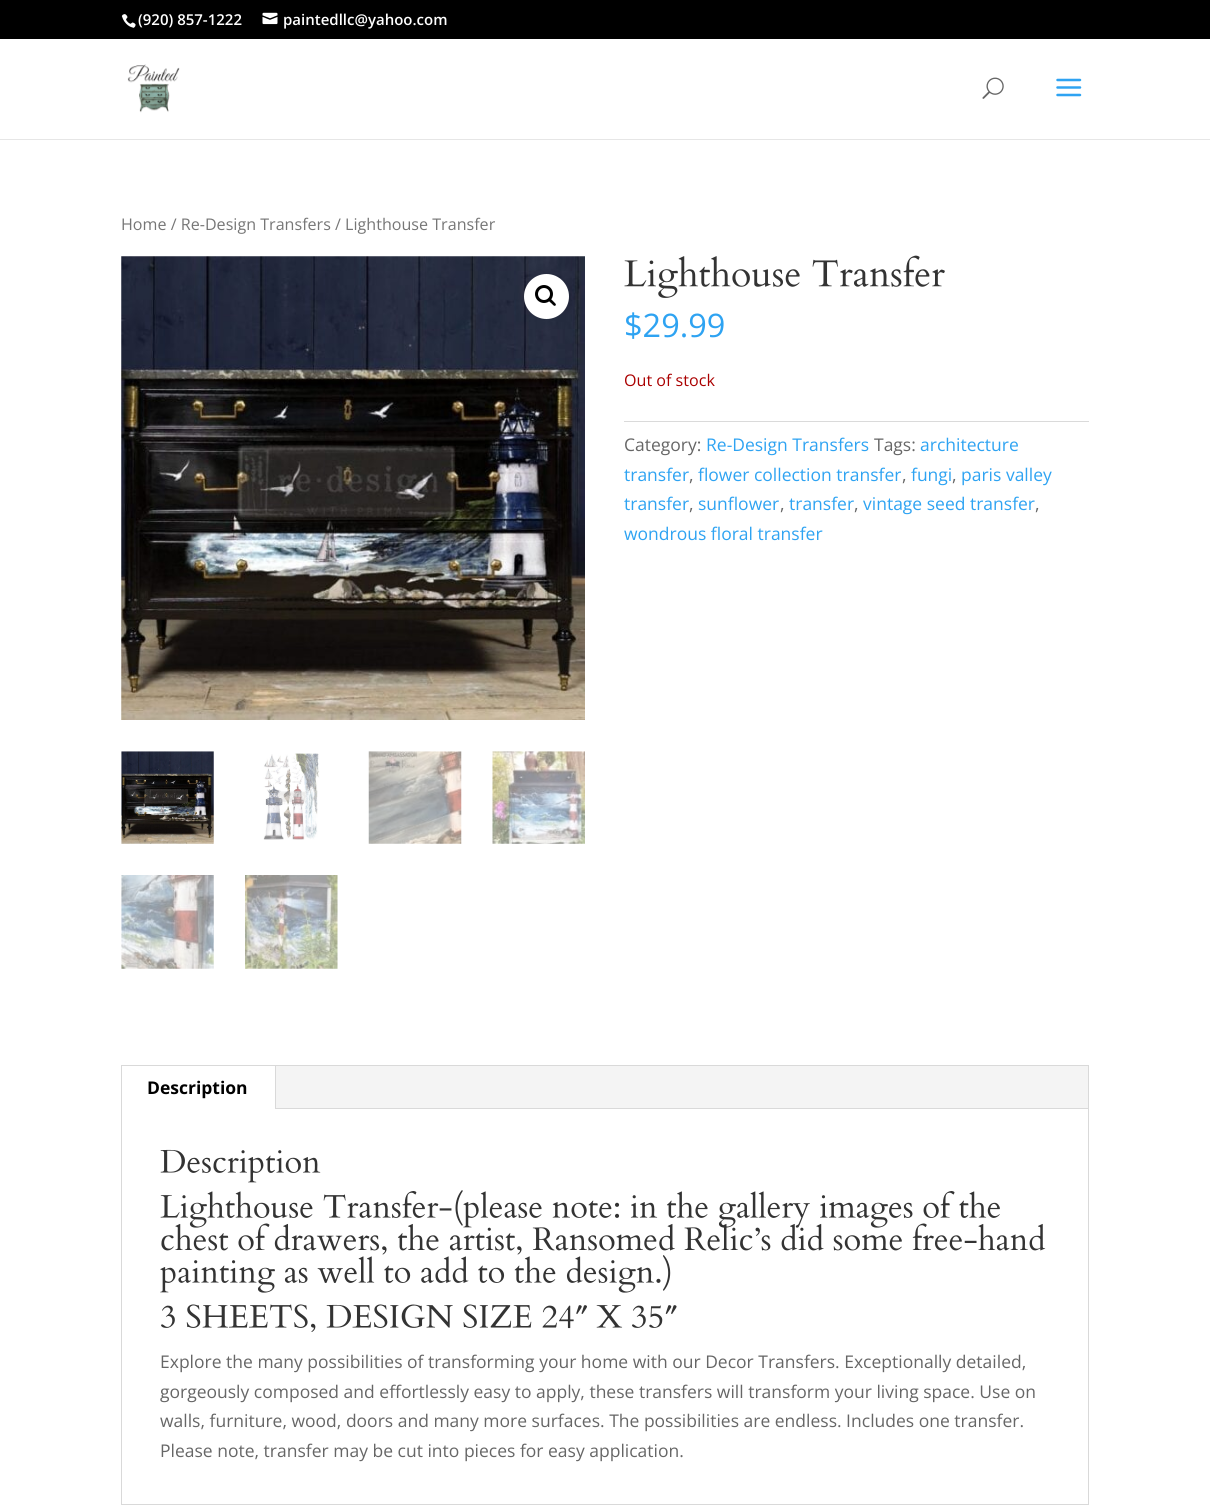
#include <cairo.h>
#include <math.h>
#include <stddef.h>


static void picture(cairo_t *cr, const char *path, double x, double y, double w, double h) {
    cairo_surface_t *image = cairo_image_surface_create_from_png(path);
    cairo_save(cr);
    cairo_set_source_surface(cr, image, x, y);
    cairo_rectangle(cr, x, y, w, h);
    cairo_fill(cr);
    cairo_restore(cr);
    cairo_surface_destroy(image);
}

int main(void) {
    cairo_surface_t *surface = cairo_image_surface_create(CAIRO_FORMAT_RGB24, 1210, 1507);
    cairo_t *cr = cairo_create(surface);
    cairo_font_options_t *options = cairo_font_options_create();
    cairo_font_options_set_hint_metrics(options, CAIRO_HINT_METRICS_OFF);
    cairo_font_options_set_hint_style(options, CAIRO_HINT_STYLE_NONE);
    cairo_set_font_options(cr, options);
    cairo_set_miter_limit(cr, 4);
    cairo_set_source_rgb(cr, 1, 1, 1);
    cairo_paint(cr);
    cairo_set_source_rgb(cr, 0, 0, 0);
    cairo_rectangle(cr, 0, 0, 1210, 39);
    cairo_fill(cr);
    picture(cr, "img1.png", 121, 14, 15, 14);
    cairo_select_font_face(cr, "Open Sans SemiBold", CAIRO_FONT_SLANT_NORMAL, CAIRO_FONT_WEIGHT_NORMAL);
    cairo_set_font_size(cr, 15);
    cairo_set_source_rgb(cr, 1, 1, 1);
    cairo_move_to(cr, 138, 25);
    cairo_show_text(cr, "(920) 857-1222");
    picture(cr, "img2.png", 262, 12, 16, 13);
    cairo_move_to(cr, 283, 25);
    cairo_show_text(cr, "paintedllc@yahoo.com");
    cairo_set_source_rgb(cr, 0.902, 0.902, 0.902);
    cairo_rectangle(cr, 0, 139, 1210, 1);
    cairo_fill(cr);
    picture(cr, "img3.png", 127, 64, 53, 49);
    picture(cr, "img4.png", 982, 77, 22, 22);
    picture(cr, "img5.png", 1056, 78, 26, 19);
    cairo_select_font_face(cr, "Open Sans", CAIRO_FONT_SLANT_NORMAL, CAIRO_FONT_WEIGHT_NORMAL);
    cairo_set_font_size(cr, 16.1);
    cairo_set_source_rgb(cr, 0.463, 0.463, 0.463);
    cairo_move_to(cr, 121, 230);
    cairo_show_text(cr, "Home / Re-Design Transfers / Lighthouse Transfer");
    picture(cr, "img6.png", 121, 256, 464, 464);
    cairo_set_source_rgb(cr, 1, 1, 1);
    cairo_arc(cr, 546.5, 296.5, 22.5, 0, 2 * M_PI);
    cairo_fill(cr);
    cairo_arc(cr, 544, 294, 7.5, 0, 2 * M_PI);
    cairo_set_source_rgb(cr, 0, 0, 0);
    cairo_set_line_width(cr, 3);
    cairo_stroke(cr);
    cairo_new_path(cr);
    cairo_move_to(cr, 548.5, 298.5);
    cairo_curve_to(cr, 550, 297, 552, 300.5, 553, 301);
    cairo_curve_to(cr, 553.5, 302, 557, 304, 555.5, 305.5);
    cairo_curve_to(cr, 554, 307, 552, 303.5, 551, 303);
    cairo_curve_to(cr, 550, 302, 547, 300, 548.5, 298.5);
    cairo_close_path(cr);
    cairo_fill(cr);
    picture(cr, "img7.png", 121, 751, 93, 93);
    picture(cr, "img8.png", 263, 753, 57, 87);
    picture(cr, "img9.png", 368, 751, 94, 93);
    picture(cr, "img10.png", 492, 751, 93, 93);
    picture(cr, "img11.png", 121, 875, 93, 94);
    picture(cr, "img12.png", 245, 875, 93, 94);
    picture(cr, "img13.png", 624, 255, 321, 43);
    cairo_set_font_size(cr, 32.5);
    cairo_set_source_rgb(cr, 0.18, 0.639, 0.949);
    cairo_move_to(cr, 624, 337);
    cairo_show_text(cr, "$29.99");
    cairo_set_font_size(cr, 16.1);
    cairo_set_source_rgb(cr, 0.667, 0, 0);
    cairo_move_to(cr, 624, 386);
    cairo_show_text(cr, "Out of stock");
    cairo_set_source_rgb(cr, 0.855, 0.855, 0.855);
    cairo_rectangle(cr, 624, 421, 465, 1);
    cairo_fill(cr);
    cairo_set_font_size(cr, 17.5);
    cairo_set_source_rgb(cr, 0.4, 0.4, 0.4);
    cairo_move_to(cr, 624, 451);
    cairo_show_text(cr, "Category:");
    cairo_set_source_rgb(cr, 0.18, 0.639, 0.949);
    cairo_move_to(cr, 706, 451);
    cairo_show_text(cr, "Re-Design Transfers");
    cairo_set_source_rgb(cr, 0.4, 0.4, 0.4);
    cairo_move_to(cr, 874, 451);
    cairo_show_text(cr, "Tags:");
    cairo_set_source_rgb(cr, 0.18, 0.639, 0.949);
    cairo_move_to(cr, 920, 451);
    cairo_show_text(cr, "architecture");
    cairo_move_to(cr, 624, 481);
    cairo_show_text(cr, "transfer");
    cairo_set_source_rgb(cr, 0.4, 0.4, 0.4);
    cairo_move_to(cr, 689, 481);
    cairo_show_text(cr, ",");
    cairo_set_source_rgb(cr, 0.18, 0.639, 0.949);
    cairo_move_to(cr, 698, 481);
    cairo_show_text(cr, "flower collection transfer");
    cairo_set_source_rgb(cr, 0.4, 0.4, 0.4);
    cairo_move_to(cr, 902, 481);
    cairo_show_text(cr, ",");
    cairo_set_source_rgb(cr, 0.18, 0.639, 0.949);
    cairo_move_to(cr, 911, 481);
    cairo_show_text(cr, "fungi");
    cairo_set_source_rgb(cr, 0.4, 0.4, 0.4);
    cairo_move_to(cr, 952, 481);
    cairo_show_text(cr, ",");
    cairo_set_source_rgb(cr, 0.18, 0.639, 0.949);
    cairo_move_to(cr, 961, 481);
    cairo_show_text(cr, "paris valley");
    cairo_move_to(cr, 624, 510);
    cairo_show_text(cr, "transfer");
    cairo_set_source_rgb(cr, 0.4, 0.4, 0.4);
    cairo_move_to(cr, 689, 510);
    cairo_show_text(cr, ",");
    cairo_set_source_rgb(cr, 0.18, 0.639, 0.949);
    cairo_move_to(cr, 698, 510);
    cairo_show_text(cr, "sunflower");
    cairo_set_source_rgb(cr, 0.4, 0.4, 0.4);
    cairo_move_to(cr, 780, 510);
    cairo_show_text(cr, ",");
    cairo_set_source_rgb(cr, 0.18, 0.639, 0.949);
    cairo_move_to(cr, 789, 510);
    cairo_show_text(cr, "transfer");
    cairo_set_source_rgb(cr, 0.4, 0.4, 0.4);
    cairo_move_to(cr, 854, 510);
    cairo_show_text(cr, ",");
    cairo_set_source_rgb(cr, 0.18, 0.639, 0.949);
    cairo_move_to(cr, 863, 510);
    cairo_show_text(cr, "vintage seed transfer");
    cairo_set_source_rgb(cr, 0.4, 0.4, 0.4);
    cairo_move_to(cr, 1035, 510);
    cairo_show_text(cr, ",");
    cairo_set_source_rgb(cr, 0.18, 0.639, 0.949);
    cairo_move_to(cr, 624, 540);
    cairo_show_text(cr, "wondrous floral transfer");
    cairo_rectangle(cr, 121.5, 1065.5, 967, 439);
    cairo_set_source_rgb(cr, 0.851, 0.851, 0.851);
    cairo_set_line_width(cr, 1);
    cairo_stroke(cr);
    cairo_set_source_rgb(cr, 0.957, 0.957, 0.957);
    cairo_rectangle(cr, 276, 1066, 812, 42);
    cairo_fill(cr);
    cairo_set_source_rgb(cr, 0.851, 0.851, 0.851);
    cairo_rectangle(cr, 275, 1066, 1, 43);
    cairo_fill(cr);
    cairo_select_font_face(cr, "Open Sans", CAIRO_FONT_SLANT_NORMAL, CAIRO_FONT_WEIGHT_BOLD);
    cairo_set_source_rgb(cr, 0, 0, 0);
    cairo_move_to(cr, 147, 1094);
    cairo_show_text(cr, "Description");
    cairo_set_source_rgb(cr, 0.851, 0.851, 0.851);
    cairo_rectangle(cr, 276, 1108, 812, 1);
    cairo_fill(cr);
    picture(cr, "img14.png", 160, 1149, 161, 34);
    picture(cr, "img15.png", 160, 1190, 840, 38);
    picture(cr, "img16.png", 161, 1223, 885, 32);
    picture(cr, "img17.png", 160, 1255, 511, 38);
    picture(cr, "img18.png", 161, 1304, 516, 28);
    cairo_select_font_face(cr, "Open Sans", CAIRO_FONT_SLANT_NORMAL, CAIRO_FONT_WEIGHT_NORMAL);
    cairo_set_source_rgb(cr, 0.4, 0.4, 0.4);
    cairo_move_to(cr, 160, 1368);
    cairo_show_text(cr, "Explore the many possibilities of transforming your home with our Decor Transfers. Exceptionally detailed,");
    cairo_move_to(cr, 160, 1398);
    cairo_show_text(cr, "gorgeously composed and effortlessly easy to apply, these transfers will transform your living space. Use on");
    cairo_move_to(cr, 160, 1427);
    cairo_show_text(cr, "walls, furniture, wood, doors and many more surfaces. The possibilities are endless. Includes one transfer.");
    cairo_move_to(cr, 160, 1457);
    cairo_show_text(cr, "Please note, transfer may be cut into pieces for easy application.");
    cairo_surface_write_to_png(surface, "page.png");
    cairo_font_options_destroy(options);
    cairo_destroy(cr);
    cairo_surface_destroy(surface);
    return 0;
}
